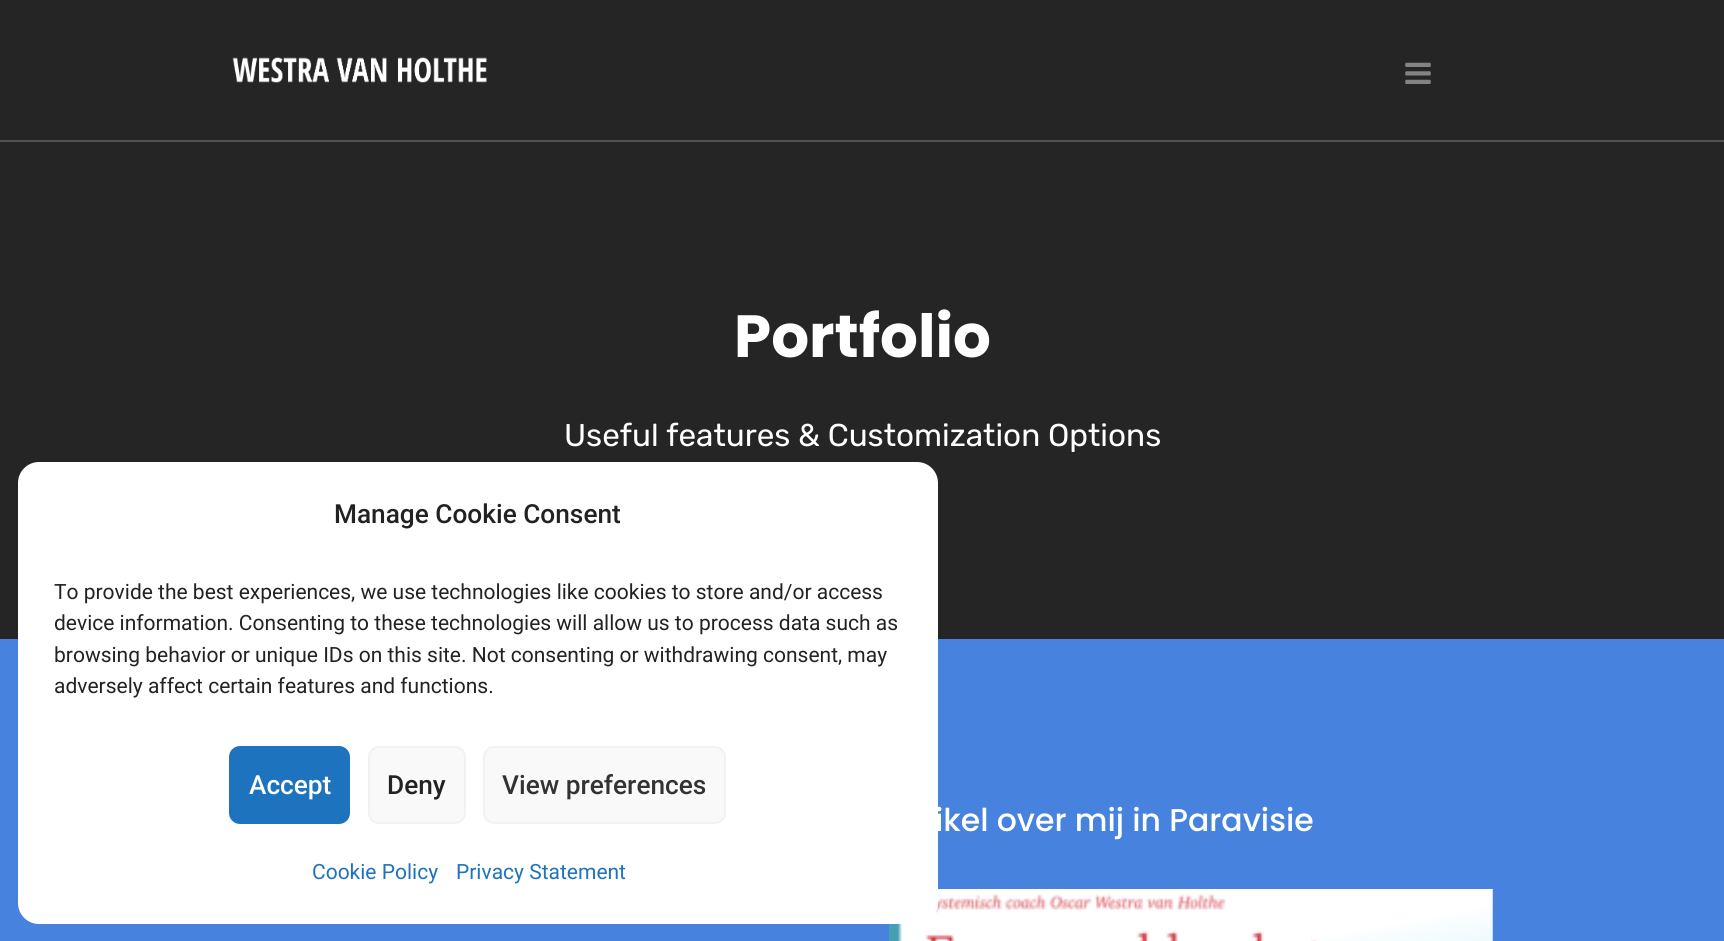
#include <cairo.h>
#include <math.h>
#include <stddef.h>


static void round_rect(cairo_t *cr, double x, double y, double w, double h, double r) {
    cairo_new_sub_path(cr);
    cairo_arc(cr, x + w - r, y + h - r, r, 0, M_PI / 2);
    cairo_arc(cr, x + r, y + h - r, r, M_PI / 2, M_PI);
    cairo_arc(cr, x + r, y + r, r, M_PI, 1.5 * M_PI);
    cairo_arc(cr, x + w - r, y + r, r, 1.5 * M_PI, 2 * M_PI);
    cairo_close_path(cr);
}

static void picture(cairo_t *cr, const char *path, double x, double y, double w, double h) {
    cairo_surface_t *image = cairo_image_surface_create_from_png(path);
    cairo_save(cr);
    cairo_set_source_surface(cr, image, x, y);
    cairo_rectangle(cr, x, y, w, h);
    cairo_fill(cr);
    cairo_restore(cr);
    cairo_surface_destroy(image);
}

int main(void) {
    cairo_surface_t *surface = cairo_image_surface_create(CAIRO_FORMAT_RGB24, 1724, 941);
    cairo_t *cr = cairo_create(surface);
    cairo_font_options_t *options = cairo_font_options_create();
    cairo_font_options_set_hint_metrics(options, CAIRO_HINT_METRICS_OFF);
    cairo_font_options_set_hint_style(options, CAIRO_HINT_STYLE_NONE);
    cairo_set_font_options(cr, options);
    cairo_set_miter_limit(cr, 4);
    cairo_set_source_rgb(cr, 0.145, 0.145, 0.145);
    cairo_paint(cr);
    cairo_set_source_rgb(cr, 0.275, 0.51, 0.871);
    cairo_rectangle(cr, 0, 639, 1724, 302);
    cairo_fill(cr);
    picture(cr, "img3.png", 889, 889, 604, 52);
    cairo_set_source_rgb(cr, 1, 1, 1);
    round_rect(cr, 18, 462, 920, 462, 21);
    cairo_fill(cr);
    cairo_select_font_face(cr, "Roboto Medium", CAIRO_FONT_SLANT_NORMAL, CAIRO_FONT_WEIGHT_NORMAL);
    cairo_set_font_size(cr, 26.25);
    cairo_set_source_rgb(cr, 0.133, 0.133, 0.133);
    cairo_move_to(cr, 334, 523);
    cairo_show_text(cr, "Manage Cookie Consent");
    cairo_select_font_face(cr, "Roboto", CAIRO_FONT_SLANT_NORMAL, CAIRO_FONT_WEIGHT_NORMAL);
    cairo_set_font_size(cr, 21);
    cairo_move_to(cr, 54, 599);
    cairo_show_text(cr, "To provide the best experiences, we use technologies like cookies to store and/or access");
    cairo_move_to(cr, 54, 630);
    cairo_show_text(cr, "device information. Consenting to these technologies will allow us to process data such as");
    cairo_move_to(cr, 54, 662);
    cairo_show_text(cr, "browsing behavior or unique IDs on this site. Not consenting or withdrawing consent, may");
    cairo_move_to(cr, 54, 693);
    cairo_show_text(cr, "adversely affect certain features and functions.");
    cairo_set_source_rgb(cr, 0.118, 0.451, 0.745);
    round_rect(cr, 230, 747, 119, 76, 10);
    cairo_fill_preserve(cr);
    cairo_stroke(cr);
    cairo_select_font_face(cr, "Roboto Medium", CAIRO_FONT_SLANT_NORMAL, CAIRO_FONT_WEIGHT_NORMAL);
    cairo_set_font_size(cr, 26.25);
    cairo_set_source_rgb(cr, 1, 1, 1);
    cairo_move_to(cr, 249, 794);
    cairo_show_text(cr, "Accept");
    cairo_set_source_rgb(cr, 0.976, 0.976, 0.976);
    round_rect(cr, 369, 747, 96, 76, 10);
    cairo_fill_preserve(cr);
    cairo_set_source_rgb(cr, 0.949, 0.949, 0.949);
    cairo_stroke(cr);
    cairo_set_source_rgb(cr, 0.133, 0.133, 0.133);
    cairo_move_to(cr, 387, 794);
    cairo_show_text(cr, "Deny");
    cairo_set_source_rgb(cr, 0.976, 0.976, 0.976);
    round_rect(cr, 484, 747, 241, 76, 10);
    cairo_fill_preserve(cr);
    cairo_set_source_rgb(cr, 0.949, 0.949, 0.949);
    cairo_stroke(cr);
    cairo_set_source_rgb(cr, 0.2, 0.2, 0.2);
    cairo_move_to(cr, 502, 794);
    cairo_show_text(cr, "View preferences");
    cairo_select_font_face(cr, "Roboto", CAIRO_FONT_SLANT_NORMAL, CAIRO_FONT_WEIGHT_NORMAL);
    cairo_set_font_size(cr, 21);
    cairo_set_source_rgb(cr, 0.118, 0.451, 0.745);
    cairo_move_to(cr, 312, 879);
    cairo_show_text(cr, "Cookie Policy");
    cairo_move_to(cr, 456, 879);
    cairo_show_text(cr, "Privacy Statement");
    cairo_set_source_rgb(cr, 0.318, 0.318, 0.318);
    cairo_rectangle(cr, 0, 140, 1724, 2);
    cairo_fill(cr);
    picture(cr, "img1.png", 232, 57, 255, 26);
    picture(cr, "img2.png", 1405, 62, 26, 22);
    cairo_select_font_face(cr, "Poppins", CAIRO_FONT_SLANT_NORMAL, CAIRO_FONT_WEIGHT_BOLD);
    cairo_set_font_size(cr, 59.5);
    cairo_set_source_rgb(cr, 1, 1, 1);
    cairo_move_to(cr, 734, 357);
    cairo_show_text(cr, "Portfolio");
    cairo_select_font_face(cr, "Rubik", CAIRO_FONT_SLANT_NORMAL, CAIRO_FONT_WEIGHT_NORMAL);
    cairo_set_font_size(cr, 31.5);
    cairo_move_to(cr, 564, 446);
    cairo_show_text(cr, "Useful features & Customization Options");
    cairo_select_font_face(cr, "Poppins Medium", CAIRO_FONT_SLANT_NORMAL, CAIRO_FONT_WEIGHT_NORMAL);
    cairo_move_to(cr, 935, 831);
    cairo_show_text(cr, "ikel over mij in Paravisie");
    cairo_surface_write_to_png(surface, "page.png");
    cairo_font_options_destroy(options);
    cairo_destroy(cr);
    cairo_surface_destroy(surface);
    return 0;
}
